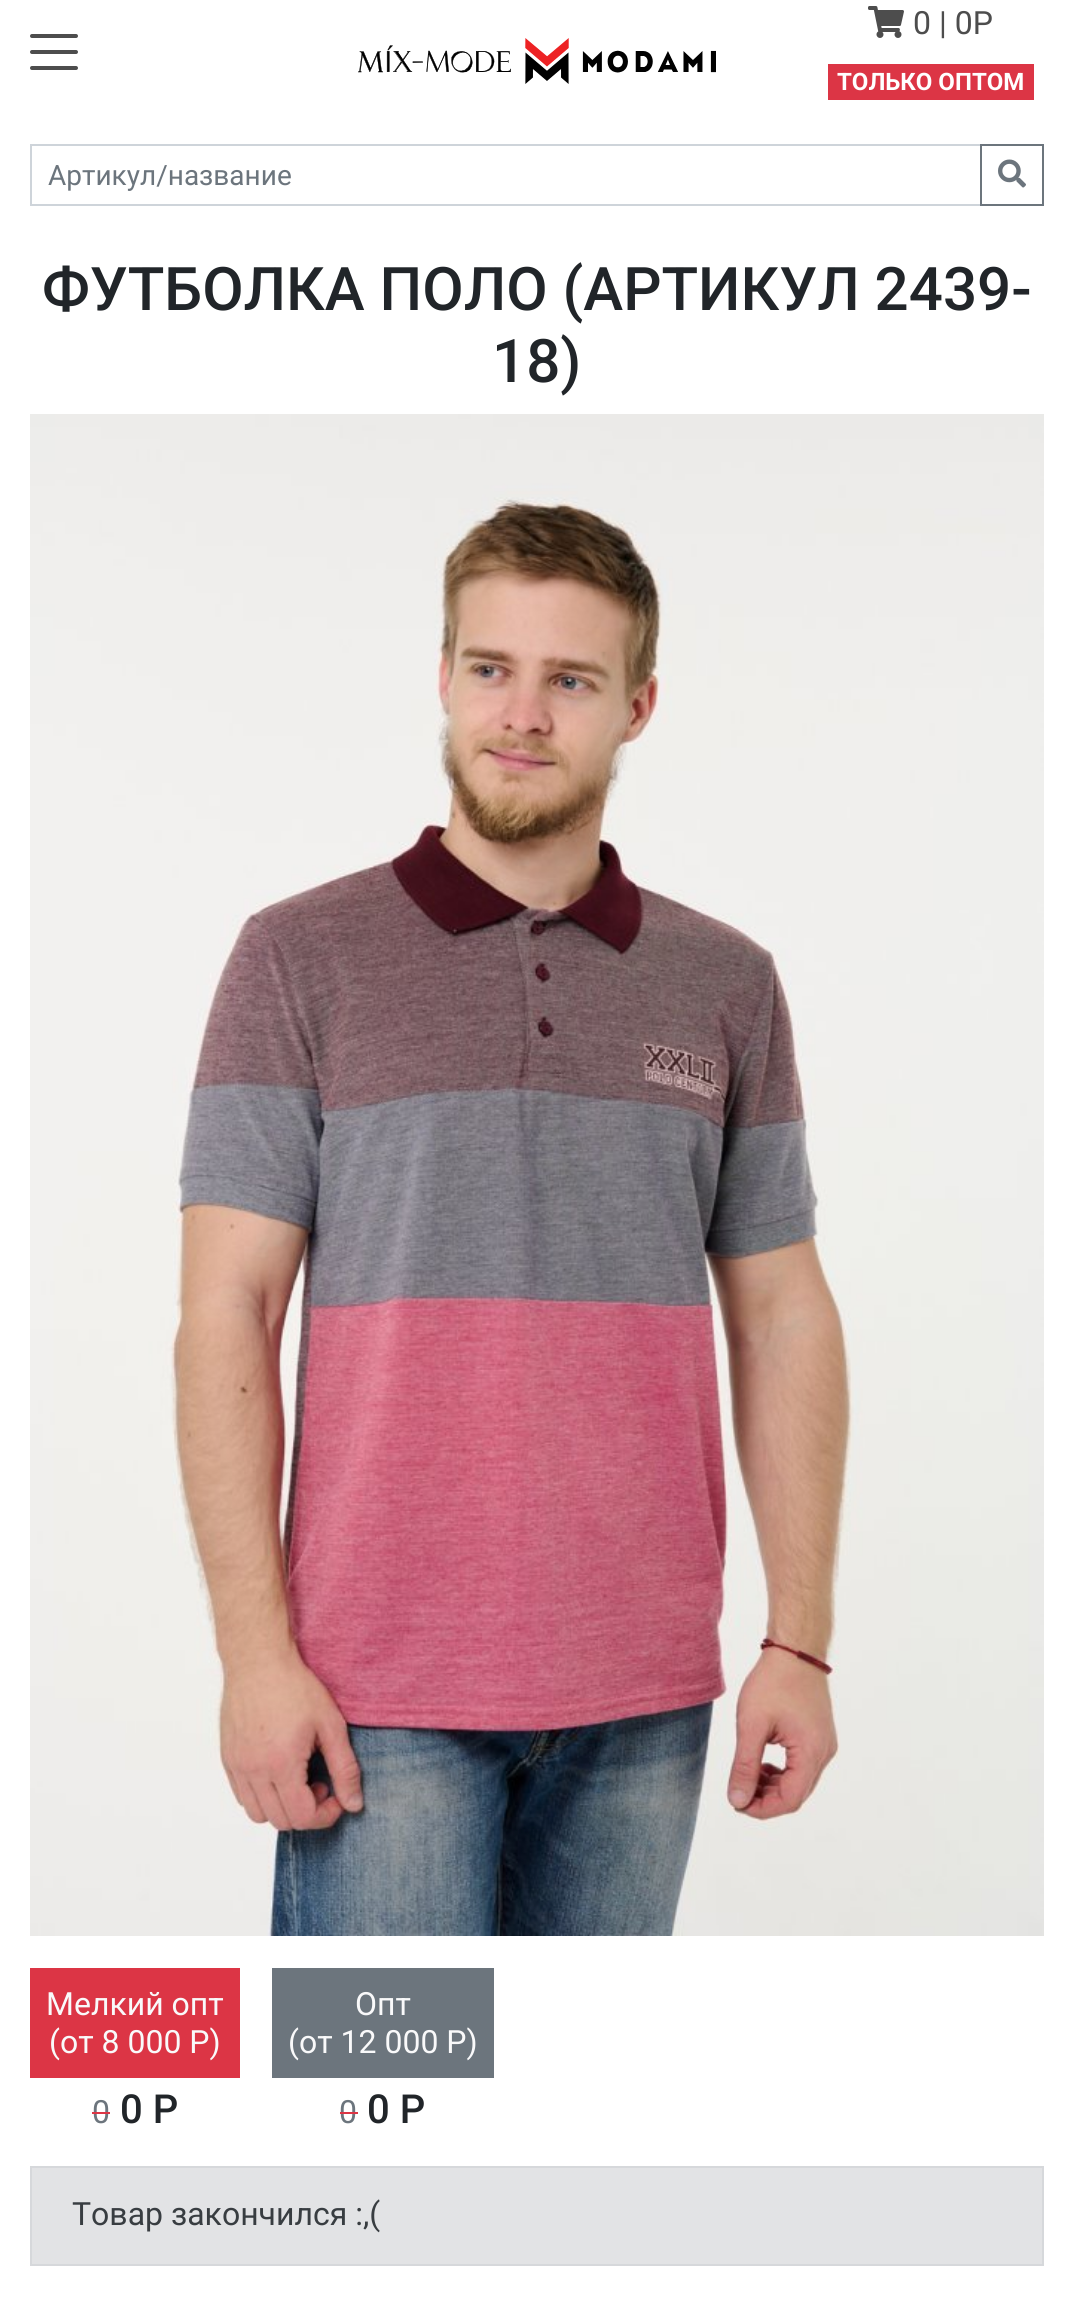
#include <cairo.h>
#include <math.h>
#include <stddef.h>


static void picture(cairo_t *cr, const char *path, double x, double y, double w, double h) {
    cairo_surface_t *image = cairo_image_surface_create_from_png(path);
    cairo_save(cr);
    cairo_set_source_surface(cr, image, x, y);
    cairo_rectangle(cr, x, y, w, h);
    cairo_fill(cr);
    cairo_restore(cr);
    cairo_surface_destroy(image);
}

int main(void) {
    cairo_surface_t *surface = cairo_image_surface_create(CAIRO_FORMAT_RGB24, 1074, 2297);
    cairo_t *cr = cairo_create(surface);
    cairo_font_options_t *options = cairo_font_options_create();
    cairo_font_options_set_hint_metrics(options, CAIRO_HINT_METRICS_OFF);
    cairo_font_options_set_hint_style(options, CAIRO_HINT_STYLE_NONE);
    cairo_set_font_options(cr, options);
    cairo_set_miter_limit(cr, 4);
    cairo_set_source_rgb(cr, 1, 1, 1);
    cairo_paint(cr);
    cairo_new_path(cr);
    cairo_move_to(cr, 32, 36);
    cairo_line_to(cr, 76, 36);
    cairo_move_to(cr, 32, 52);
    cairo_line_to(cr, 76, 52);
    cairo_move_to(cr, 32, 68);
    cairo_line_to(cr, 76, 68);
    cairo_set_source_rgb(cr, 0.302, 0.302, 0.302);
    cairo_set_line_width(cr, 4);
    cairo_set_line_cap(cr, CAIRO_LINE_CAP_ROUND);
    cairo_stroke(cr);
    picture(cr, "img1.png", 358, 38, 358, 46);
    picture(cr, "img2.png", 868, 6, 36, 32);
    cairo_select_font_face(cr, "Roboto", CAIRO_FONT_SLANT_NORMAL, CAIRO_FONT_WEIGHT_NORMAL);
    cairo_set_font_size(cr, 32);
    cairo_move_to(cr, 913, 34);
    cairo_show_text(cr, "0 | 0Р");
    cairo_set_source_rgb(cr, 0.863, 0.208, 0.271);
    cairo_rectangle(cr, 828, 64, 206, 36);
    cairo_fill(cr);
    cairo_select_font_face(cr, "Roboto", CAIRO_FONT_SLANT_NORMAL, CAIRO_FONT_WEIGHT_BOLD);
    cairo_set_font_size(cr, 24);
    cairo_set_source_rgb(cr, 1, 1, 1);
    cairo_move_to(cr, 837, 90);
    cairo_show_text(cr, "ТОЛЬКО ОПТОМ");
    cairo_rectangle(cr, 31, 145, 950, 60);
    cairo_set_source_rgb(cr, 0.808, 0.831, 0.855);
    cairo_set_line_width(cr, 2);
    cairo_set_line_cap(cr, CAIRO_LINE_CAP_BUTT);
    cairo_stroke(cr);
    cairo_select_font_face(cr, "Roboto", CAIRO_FONT_SLANT_NORMAL, CAIRO_FONT_WEIGHT_NORMAL);
    cairo_set_font_size(cr, 28);
    cairo_set_source_rgb(cr, 0.424, 0.459, 0.49);
    cairo_move_to(cr, 48, 185);
    cairo_show_text(cr, "Артикул/название");
    cairo_rectangle(cr, 981, 145, 62, 60);
    cairo_stroke(cr);
    picture(cr, "img3.png", 998, 159, 28, 29);
    cairo_select_font_face(cr, "Roboto Medium", CAIRO_FONT_SLANT_NORMAL, CAIRO_FONT_WEIGHT_NORMAL);
    cairo_set_font_size(cr, 60.1);
    cairo_set_source_rgb(cr, 0.129, 0.145, 0.161);
    cairo_move_to(cr, 42, 310);
    cairo_show_text(cr, "ФУТБОЛКА ПОЛО (АРТИКУЛ 2439-");
    cairo_move_to(cr, 492, 382);
    cairo_show_text(cr, "18)");
    picture(cr, "img4.png", 30, 414, 1014, 1522);
    cairo_set_source_rgb(cr, 0.863, 0.208, 0.271);
    cairo_rectangle(cr, 30, 1968, 210, 110);
    cairo_fill(cr);
    cairo_select_font_face(cr, "Roboto", CAIRO_FONT_SLANT_NORMAL, CAIRO_FONT_WEIGHT_NORMAL);
    cairo_set_font_size(cr, 32);
    cairo_set_source_rgb(cr, 0.973, 0.976, 0.98);
    cairo_move_to(cr, 46, 2015);
    cairo_show_text(cr, "Мелкий опт");
    cairo_move_to(cr, 49, 2053);
    cairo_show_text(cr, "(от 8 000 Р)");
    cairo_set_source_rgb(cr, 0.424, 0.459, 0.49);
    cairo_move_to(cr, 92, 2123);
    cairo_show_text(cr, "0");
    cairo_set_source_rgb(cr, 0.863, 0.208, 0.271);
    cairo_rectangle(cr, 92, 2112, 18, 2);
    cairo_fill(cr);
    cairo_select_font_face(cr, "Roboto Medium", CAIRO_FONT_SLANT_NORMAL, CAIRO_FONT_WEIGHT_NORMAL);
    cairo_set_font_size(cr, 40);
    cairo_set_source_rgb(cr, 0.129, 0.145, 0.161);
    cairo_move_to(cr, 120, 2123);
    cairo_show_text(cr, "0 Р");
    cairo_set_source_rgb(cr, 0.424, 0.459, 0.49);
    cairo_rectangle(cr, 272, 1968, 222, 110);
    cairo_fill(cr);
    cairo_select_font_face(cr, "Roboto", CAIRO_FONT_SLANT_NORMAL, CAIRO_FONT_WEIGHT_NORMAL);
    cairo_set_font_size(cr, 32);
    cairo_set_source_rgb(cr, 0.973, 0.976, 0.98);
    cairo_move_to(cr, 355, 2015);
    cairo_show_text(cr, "Опт");
    cairo_move_to(cr, 288, 2053);
    cairo_show_text(cr, "(от 12 000 Р)");
    cairo_set_source_rgb(cr, 0.424, 0.459, 0.49);
    cairo_move_to(cr, 339, 2123);
    cairo_show_text(cr, "0");
    cairo_set_source_rgb(cr, 0.863, 0.208, 0.271);
    cairo_rectangle(cr, 340, 2112, 18, 2);
    cairo_fill(cr);
    cairo_select_font_face(cr, "Roboto Medium", CAIRO_FONT_SLANT_NORMAL, CAIRO_FONT_WEIGHT_NORMAL);
    cairo_set_font_size(cr, 40);
    cairo_set_source_rgb(cr, 0.129, 0.145, 0.161);
    cairo_move_to(cr, 367, 2123);
    cairo_show_text(cr, "0 Р");
    cairo_set_source_rgb(cr, 0.886, 0.89, 0.898);
    cairo_rectangle(cr, 31, 2167, 1012, 98);
    cairo_fill_preserve(cr);
    cairo_set_source_rgb(cr, 0.839, 0.847, 0.859);
    cairo_stroke(cr);
    cairo_select_font_face(cr, "Roboto", CAIRO_FONT_SLANT_NORMAL, CAIRO_FONT_WEIGHT_NORMAL);
    cairo_set_font_size(cr, 32);
    cairo_set_source_rgb(cr, 0.22, 0.239, 0.255);
    cairo_move_to(cr, 72, 2225);
    cairo_show_text(cr, "Товар закончился :,(");
    cairo_surface_write_to_png(surface, "page.png");
    cairo_font_options_destroy(options);
    cairo_destroy(cr);
    cairo_surface_destroy(surface);
    return 0;
}
